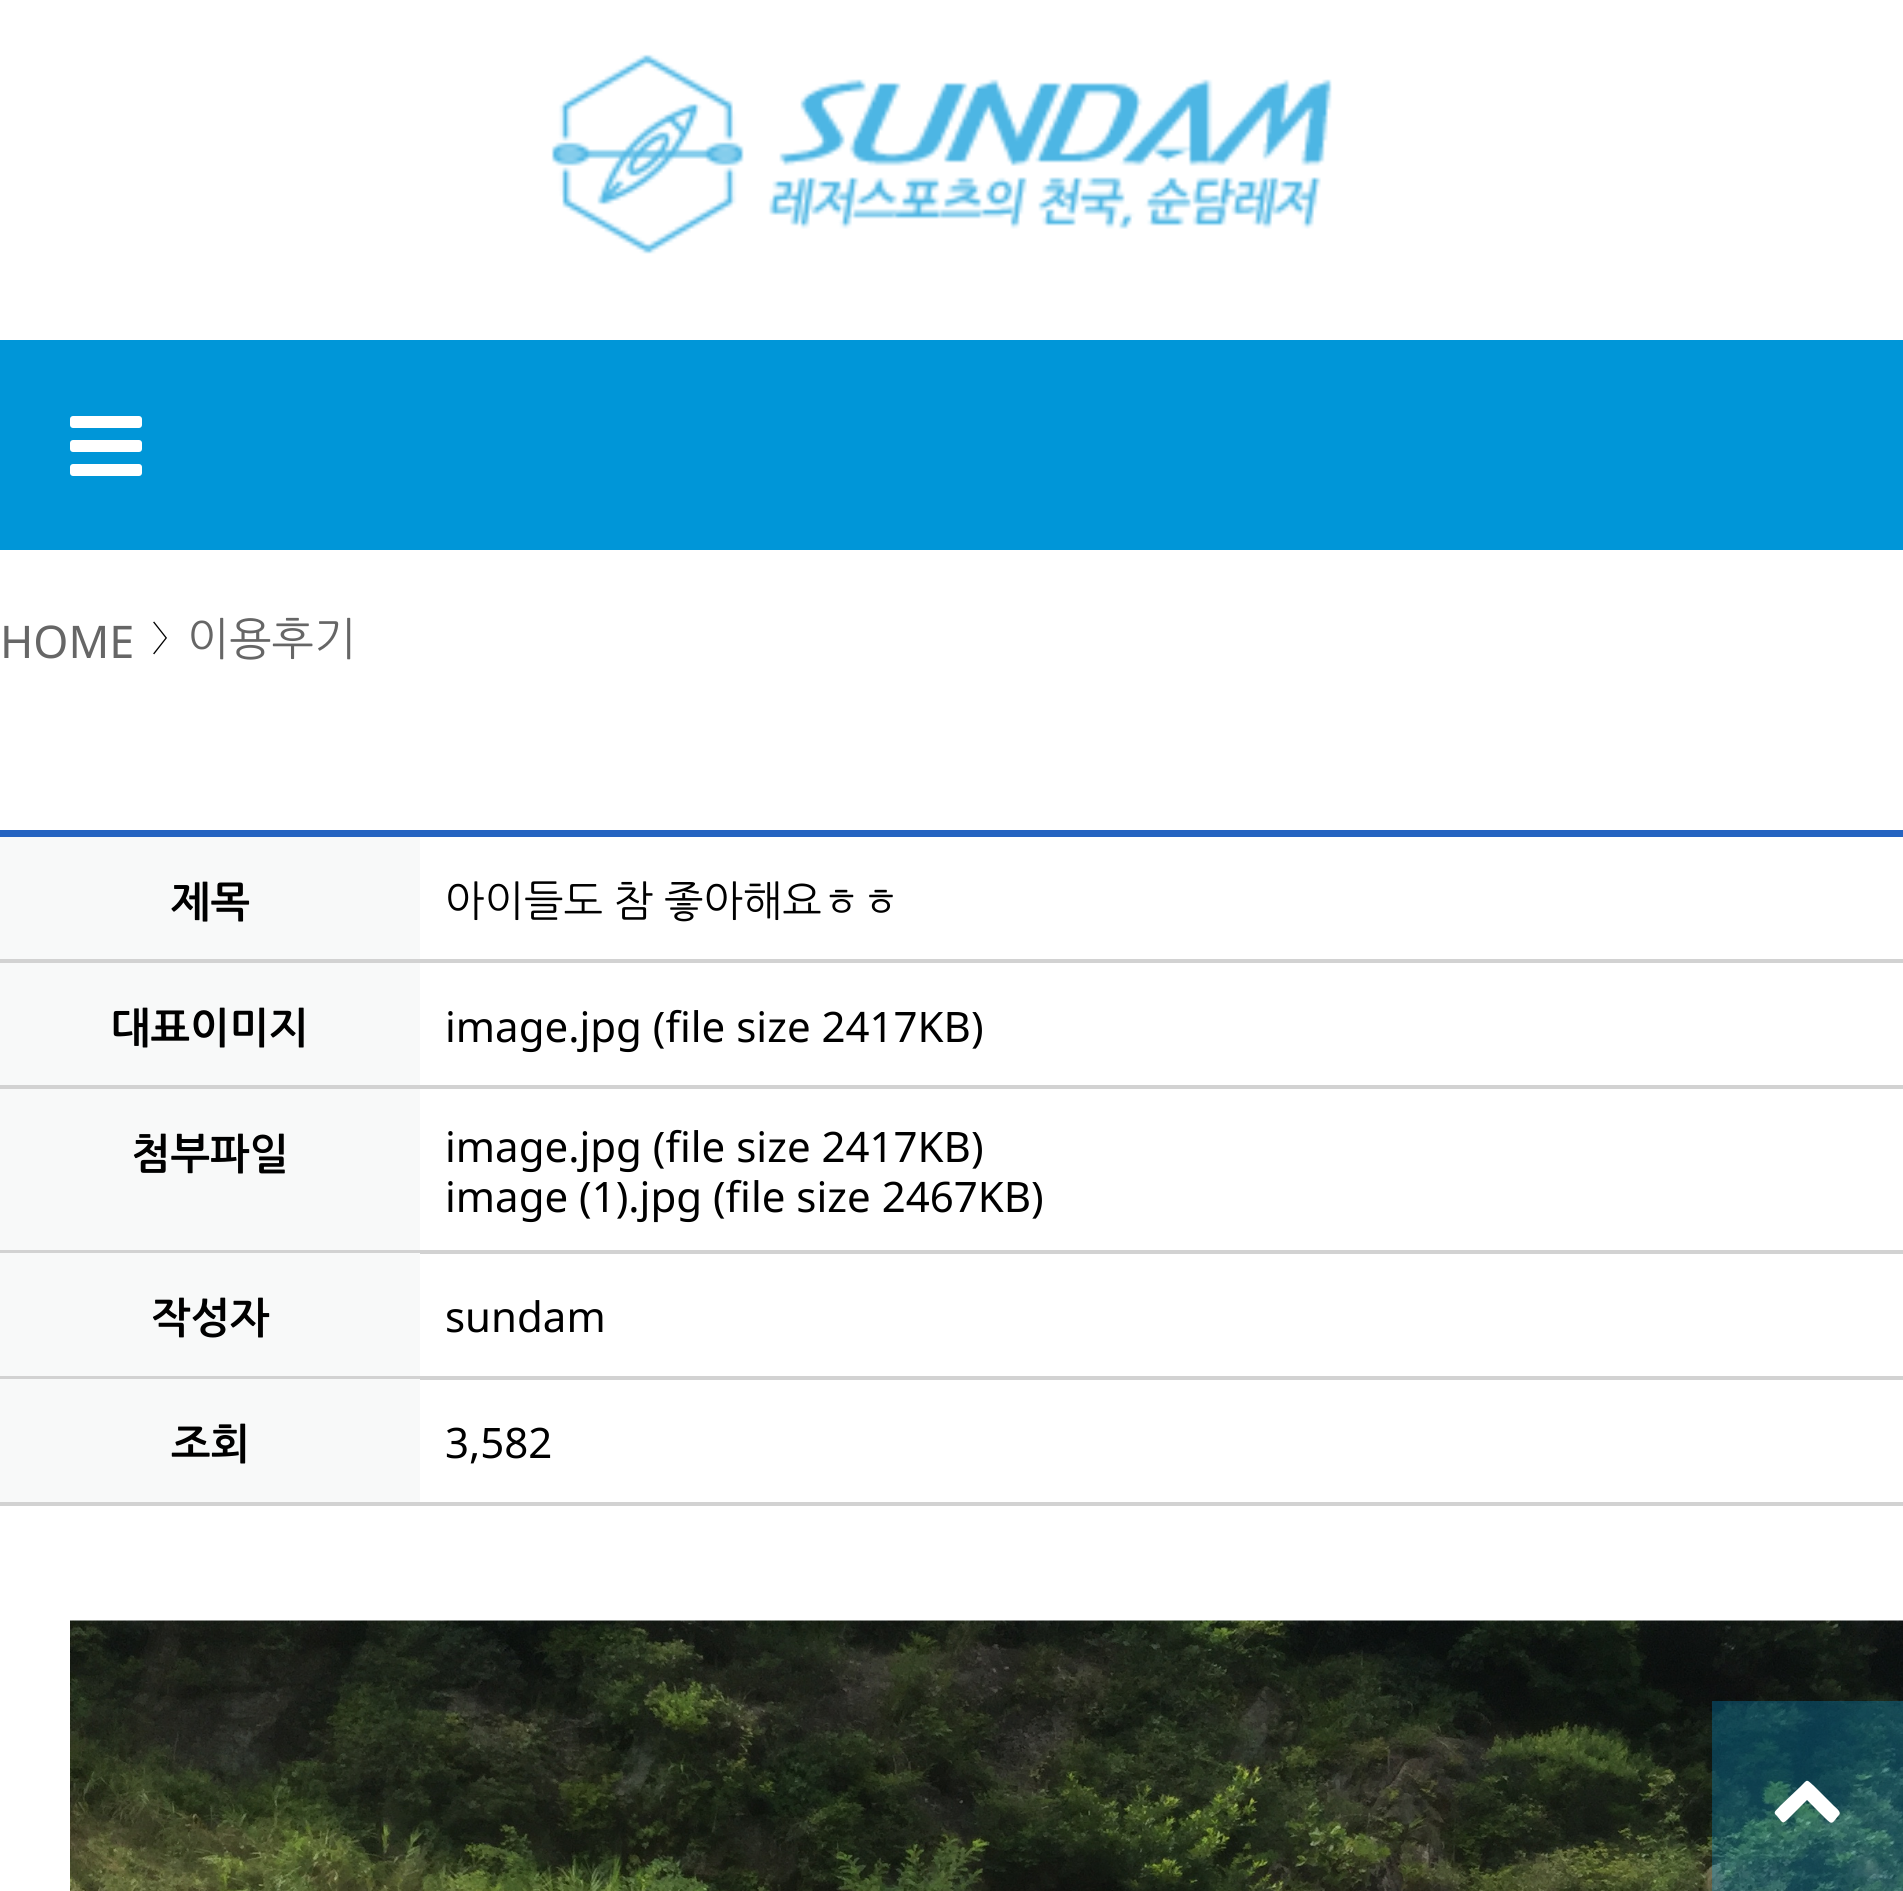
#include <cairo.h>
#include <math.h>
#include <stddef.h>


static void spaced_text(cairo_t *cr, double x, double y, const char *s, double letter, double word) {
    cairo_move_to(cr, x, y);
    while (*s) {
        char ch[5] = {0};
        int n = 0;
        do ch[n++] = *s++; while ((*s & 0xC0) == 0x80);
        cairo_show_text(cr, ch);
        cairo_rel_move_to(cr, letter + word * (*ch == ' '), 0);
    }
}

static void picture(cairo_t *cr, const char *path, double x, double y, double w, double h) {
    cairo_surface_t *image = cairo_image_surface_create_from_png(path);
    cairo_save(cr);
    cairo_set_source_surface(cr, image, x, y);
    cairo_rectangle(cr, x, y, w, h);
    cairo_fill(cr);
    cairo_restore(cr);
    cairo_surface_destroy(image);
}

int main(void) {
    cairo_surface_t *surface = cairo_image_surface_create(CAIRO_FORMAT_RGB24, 1903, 1891);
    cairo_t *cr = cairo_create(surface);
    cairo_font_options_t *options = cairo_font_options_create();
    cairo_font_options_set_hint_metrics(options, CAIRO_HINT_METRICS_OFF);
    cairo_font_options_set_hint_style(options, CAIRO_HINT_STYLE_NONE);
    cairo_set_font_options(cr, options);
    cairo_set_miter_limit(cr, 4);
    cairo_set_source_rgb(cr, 1, 1, 1);
    cairo_paint(cr);
    picture(cr, "img1.png", 551, 54, 781, 200);
    cairo_set_source_rgb(cr, 0, 0.588, 0.847);
    cairo_rectangle(cr, 0, 340, 1903, 210);
    cairo_fill(cr);
    picture(cr, "img2.png", 70, 416, 72, 60);
    cairo_select_font_face(cr, "Noto Sans", CAIRO_FONT_SLANT_NORMAL, CAIRO_FONT_WEIGHT_NORMAL);
    cairo_set_font_size(cr, 45);
    cairo_set_source_rgb(cr, 0.4, 0.4, 0.4);
    cairo_move_to(cr, 0, 658);
    cairo_show_text(cr, "HOME");
    cairo_select_font_face(cr, "NanumGothic", CAIRO_FONT_SLANT_NORMAL, CAIRO_FONT_WEIGHT_NORMAL);
    cairo_set_font_size(cr, 38);
    cairo_set_source_rgb(cr, 0, 0, 0);
    cairo_move_to(cr, 151, 651);
    cairo_show_text(cr, "〉");
    cairo_set_font_size(cr, 45);
    cairo_set_source_rgb(cr, 0.4, 0.4, 0.4);
    cairo_move_to(cr, 187, 655);
    cairo_show_text(cr, "이용후기");
    cairo_set_source_rgb(cr, 0.145, 0.392, 0.757);
    cairo_rectangle(cr, 0, 830, 1903, 7);
    cairo_fill(cr);
    cairo_set_source_rgb(cr, 0.969, 0.973, 0.973);
    cairo_rectangle(cr, 0, 837, 420, 122);
    cairo_fill(cr);
    cairo_set_source_rgb(cr, 0.824, 0.824, 0.824);
    cairo_rectangle(cr, 0, 959, 1903, 4);
    cairo_fill(cr);
    cairo_select_font_face(cr, "NanumGothic", CAIRO_FONT_SLANT_NORMAL, CAIRO_FONT_WEIGHT_BOLD);
    cairo_set_font_size(cr, 42);
    cairo_set_source_rgb(cr, 0, 0, 0);
    cairo_move_to(cr, 171, 917);
    cairo_show_text(cr, "제목");
    cairo_select_font_face(cr, "NanumGothic", CAIRO_FONT_SLANT_NORMAL, CAIRO_FONT_WEIGHT_NORMAL);
    spaced_text(cr, 445, 916, "아이들도 참 좋아해요ㅎㅎ", 0, -1);
    cairo_set_source_rgb(cr, 0.969, 0.973, 0.973);
    cairo_rectangle(cr, 0, 963, 420, 122);
    cairo_fill(cr);
    cairo_set_source_rgb(cr, 0.824, 0.824, 0.824);
    cairo_rectangle(cr, 0, 1085, 1903, 4);
    cairo_fill(cr);
    cairo_select_font_face(cr, "NanumGothic", CAIRO_FONT_SLANT_NORMAL, CAIRO_FONT_WEIGHT_BOLD);
    cairo_set_source_rgb(cr, 0, 0, 0);
    cairo_move_to(cr, 111, 1043);
    cairo_show_text(cr, "대표이미지");
    cairo_select_font_face(cr, "Noto Sans", CAIRO_FONT_SLANT_NORMAL, CAIRO_FONT_WEIGHT_NORMAL);
    cairo_move_to(cr, 445, 1042);
    cairo_show_text(cr, "image.jpg (file size 2417KB)");
    cairo_set_source_rgb(cr, 0.969, 0.973, 0.973);
    cairo_rectangle(cr, 0, 1089, 420, 161);
    cairo_fill(cr);
    cairo_set_source_rgb(cr, 0.824, 0.824, 0.824);
    cairo_rectangle(cr, 0, 1250, 420, 3);
    cairo_fill(cr);
    cairo_select_font_face(cr, "NanumGothic", CAIRO_FONT_SLANT_NORMAL, CAIRO_FONT_WEIGHT_BOLD);
    cairo_set_source_rgb(cr, 0, 0, 0);
    cairo_move_to(cr, 131, 1169);
    cairo_show_text(cr, "첨부파일");
    cairo_set_source_rgb(cr, 0.824, 0.824, 0.824);
    cairo_rectangle(cr, 420, 1250, 1483, 4);
    cairo_fill(cr);
    cairo_select_font_face(cr, "Noto Sans", CAIRO_FONT_SLANT_NORMAL, CAIRO_FONT_WEIGHT_NORMAL);
    cairo_set_source_rgb(cr, 0, 0, 0);
    cairo_move_to(cr, 445, 1162);
    cairo_show_text(cr, "image.jpg (file size 2417KB)");
    cairo_move_to(cr, 445, 1212);
    cairo_show_text(cr, "image (1).jpg (file size 2467KB)");
    cairo_set_source_rgb(cr, 0.969, 0.973, 0.973);
    cairo_rectangle(cr, 0, 1253, 420, 123);
    cairo_fill(cr);
    cairo_set_source_rgb(cr, 0.824, 0.824, 0.824);
    cairo_rectangle(cr, 0, 1376, 420, 3);
    cairo_fill(cr);
    cairo_select_font_face(cr, "NanumGothic", CAIRO_FONT_SLANT_NORMAL, CAIRO_FONT_WEIGHT_BOLD);
    cairo_set_source_rgb(cr, 0, 0, 0);
    cairo_move_to(cr, 151, 1333);
    cairo_show_text(cr, "작성자");
    cairo_set_source_rgb(cr, 0.824, 0.824, 0.824);
    cairo_rectangle(cr, 420, 1376, 1483, 4);
    cairo_fill(cr);
    cairo_select_font_face(cr, "Noto Sans", CAIRO_FONT_SLANT_NORMAL, CAIRO_FONT_WEIGHT_NORMAL);
    cairo_set_source_rgb(cr, 0, 0, 0);
    cairo_move_to(cr, 445, 1332);
    cairo_show_text(cr, "sundam");
    cairo_set_source_rgb(cr, 0.969, 0.973, 0.973);
    cairo_rectangle(cr, 0, 1379, 420, 123);
    cairo_fill(cr);
    cairo_set_source_rgb(cr, 0.824, 0.824, 0.824);
    cairo_rectangle(cr, 0, 1502, 1903, 4);
    cairo_fill(cr);
    cairo_select_font_face(cr, "NanumGothic", CAIRO_FONT_SLANT_NORMAL, CAIRO_FONT_WEIGHT_BOLD);
    cairo_set_source_rgb(cr, 0, 0, 0);
    cairo_move_to(cr, 171, 1459);
    cairo_show_text(cr, "조회");
    cairo_select_font_face(cr, "Noto Sans", CAIRO_FONT_SLANT_NORMAL, CAIRO_FONT_WEIGHT_NORMAL);
    cairo_move_to(cr, 445, 1458);
    cairo_show_text(cr, "3,582");
    picture(cr, "img3.png", 70, 1620, 1833, 271);
    cairo_set_source_rgba(cr, 0, 0.588, 0.847, 0.3);
    cairo_rectangle(cr, 1712, 1701, 191, 190);
    cairo_fill(cr);
    cairo_set_source_rgb(cr, 1, 1, 1);
    cairo_new_path(cr);
    cairo_move_to(cr, 1839, 1815);
    cairo_curve_to(cr, 1832, 1823, 1833, 1826, 1825, 1818);
    cairo_line_to(cr, 1807, 1800);
    cairo_line_to(cr, 1789, 1818);
    cairo_curve_to(cr, 1782, 1825, 1783, 1823, 1777, 1816);
    cairo_curve_to(cr, 1772, 1812, 1776, 1811, 1780, 1806);
    cairo_line_to(cr, 1801, 1786);
    cairo_curve_to(cr, 1808, 1779, 1806, 1779, 1814, 1786);
    cairo_line_to(cr, 1834, 1806);
    cairo_curve_to(cr, 1835, 1807, 1842, 1812, 1839, 1815);
    cairo_close_path(cr);
    cairo_fill(cr);
    cairo_surface_write_to_png(surface, "page.png");
    cairo_font_options_destroy(options);
    cairo_destroy(cr);
    cairo_surface_destroy(surface);
    return 0;
}
